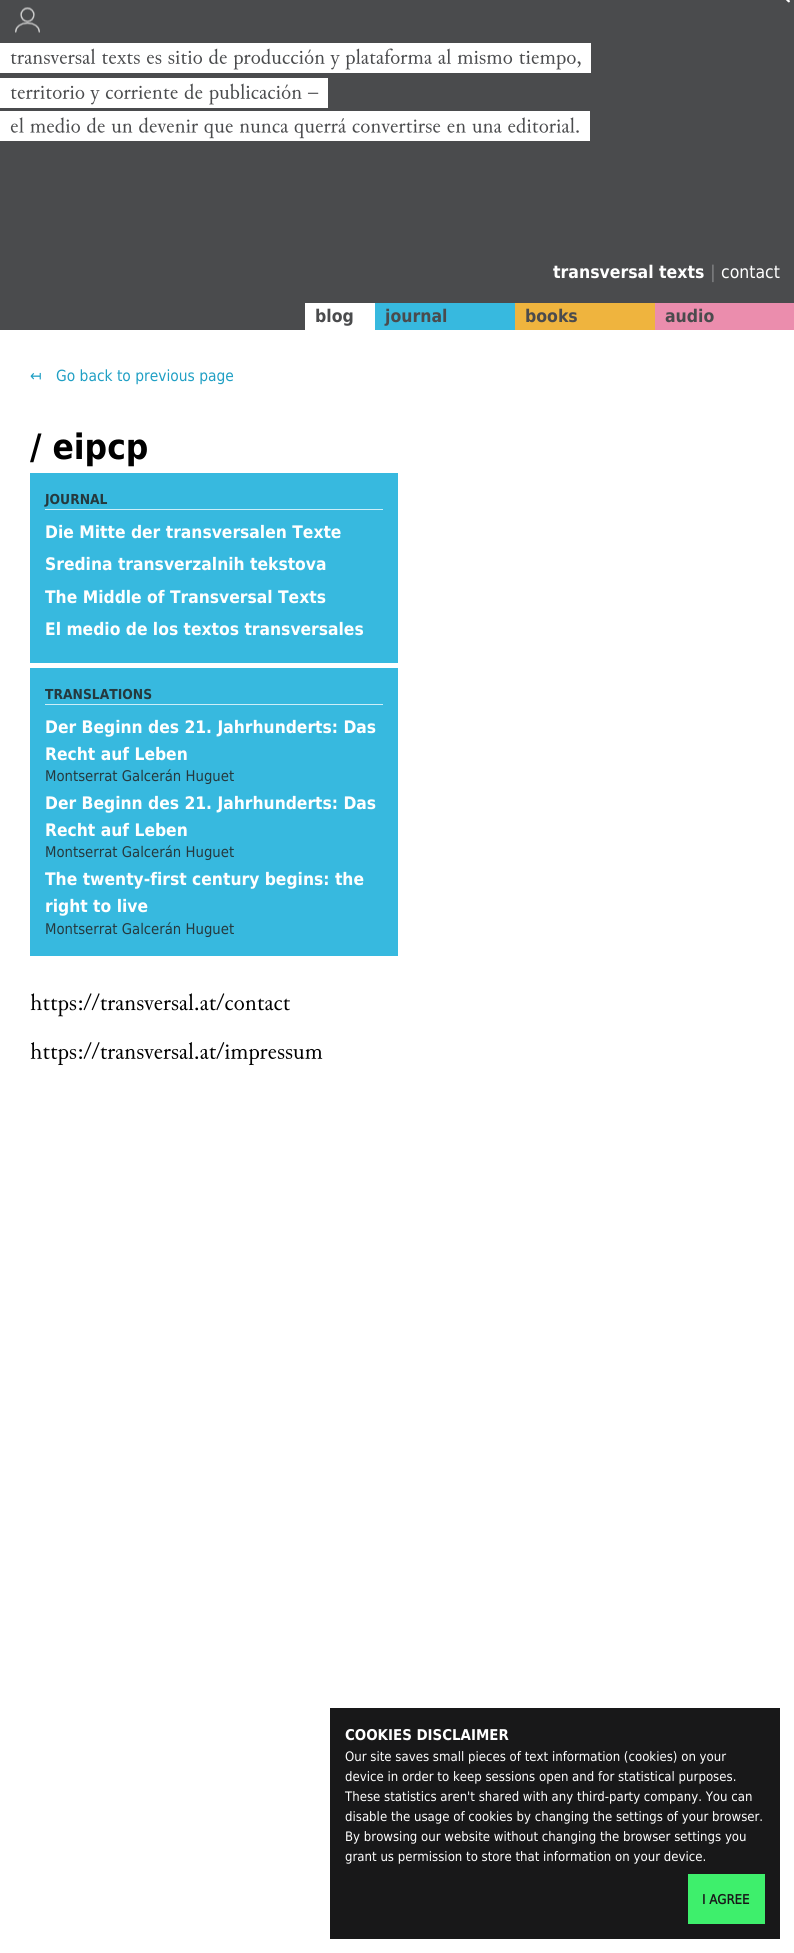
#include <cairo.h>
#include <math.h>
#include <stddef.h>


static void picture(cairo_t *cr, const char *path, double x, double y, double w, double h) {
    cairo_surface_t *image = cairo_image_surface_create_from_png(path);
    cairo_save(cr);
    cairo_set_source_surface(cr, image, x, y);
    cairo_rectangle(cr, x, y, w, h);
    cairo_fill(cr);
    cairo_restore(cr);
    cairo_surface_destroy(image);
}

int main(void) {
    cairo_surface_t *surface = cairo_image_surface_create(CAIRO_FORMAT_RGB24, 794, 1953);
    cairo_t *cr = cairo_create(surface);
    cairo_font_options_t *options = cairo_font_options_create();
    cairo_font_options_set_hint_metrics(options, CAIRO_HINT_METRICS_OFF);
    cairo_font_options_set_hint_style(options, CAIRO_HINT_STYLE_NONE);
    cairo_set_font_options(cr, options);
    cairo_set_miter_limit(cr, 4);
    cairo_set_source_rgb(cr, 0.29, 0.294, 0.302);
    cairo_paint(cr);
    cairo_set_source_rgb(cr, 1, 1, 1);
    cairo_rectangle(cr, 0, 330, 794, 1623);
    cairo_fill(cr);
    picture(cr, "img1.png", 786, 0, 4, 3);
    picture(cr, "img2.png", 15, 7, 25, 26);
    cairo_rectangle(cr, 0, 43, 591, 30);
    cairo_fill(cr);
    picture(cr, "img3.png", 10, 48, 571, 22);
    cairo_rectangle(cr, 0, 78, 328, 30);
    cairo_fill(cr);
    picture(cr, "img4.png", 10, 83, 309, 22);
    cairo_rectangle(cr, 0, 111, 590, 30);
    cairo_fill(cr);
    picture(cr, "img5.png", 10, 117, 569, 22);
    cairo_select_font_face(cr, "DejaVu Sans", CAIRO_FONT_SLANT_NORMAL, CAIRO_FONT_WEIGHT_BOLD);
    cairo_set_font_size(cr, 17.5);
    cairo_move_to(cr, 553, 278);
    cairo_show_text(cr, "transversal texts");
    cairo_set_source_rgb(cr, 0.467, 0.471, 0.478);
    cairo_move_to(cr, 710, 278);
    cairo_show_text(cr, "|");
    cairo_select_font_face(cr, "DejaVu Sans", CAIRO_FONT_SLANT_NORMAL, CAIRO_FONT_WEIGHT_NORMAL);
    cairo_set_source_rgb(cr, 1, 1, 1);
    cairo_move_to(cr, 721, 278);
    cairo_show_text(cr, "contact");
    cairo_rectangle(cr, 305, 303, 70, 27);
    cairo_fill(cr);
    cairo_select_font_face(cr, "DejaVu Sans", CAIRO_FONT_SLANT_NORMAL, CAIRO_FONT_WEIGHT_BOLD);
    cairo_set_source_rgb(cr, 0.29, 0.294, 0.302);
    cairo_move_to(cr, 315, 322);
    cairo_show_text(cr, "blog");
    cairo_set_source_rgb(cr, 0.216, 0.725, 0.875);
    cairo_rectangle(cr, 375, 303, 140, 27);
    cairo_fill(cr);
    cairo_set_source_rgb(cr, 0.29, 0.294, 0.302);
    cairo_move_to(cr, 385, 322);
    cairo_show_text(cr, "journal");
    cairo_set_source_rgb(cr, 0.937, 0.706, 0.243);
    cairo_rectangle(cr, 515, 303, 140, 27);
    cairo_fill(cr);
    cairo_set_source_rgb(cr, 0.29, 0.294, 0.302);
    cairo_move_to(cr, 525, 322);
    cairo_show_text(cr, "books");
    cairo_set_source_rgb(cr, 0.918, 0.553, 0.678);
    cairo_rectangle(cr, 655, 303, 139, 27);
    cairo_fill(cr);
    cairo_set_source_rgb(cr, 0.29, 0.294, 0.302);
    cairo_move_to(cr, 665, 322);
    cairo_show_text(cr, "audio");
    cairo_select_font_face(cr, "DejaVu Sans", CAIRO_FONT_SLANT_NORMAL, CAIRO_FONT_WEIGHT_NORMAL);
    cairo_set_font_size(cr, 15.4);
    cairo_set_source_rgb(cr, 0.122, 0.624, 0.769);
    cairo_move_to(cr, 30, 381);
    cairo_show_text(cr, "↤");
    cairo_move_to(cr, 56, 381);
    cairo_show_text(cr, "Go back to previous page");
    cairo_select_font_face(cr, "DejaVu Sans", CAIRO_FONT_SLANT_NORMAL, CAIRO_FONT_WEIGHT_BOLD);
    cairo_set_font_size(cr, 35);
    cairo_set_source_rgb(cr, 0, 0, 0);
    cairo_move_to(cr, 30, 459);
    cairo_show_text(cr, "/ eipcp");
    cairo_set_source_rgb(cr, 0.216, 0.725, 0.875);
    cairo_rectangle(cr, 30, 473, 368, 483);
    cairo_fill(cr);
    cairo_set_source_rgb(cr, 1, 1, 1);
    cairo_rectangle(cr, 30, 663, 368, 5);
    cairo_fill(cr);
    cairo_set_source_rgb(cr, 0.804, 0.933, 0.969);
    cairo_rectangle(cr, 45, 509, 338, 1);
    cairo_fill(cr);
    cairo_set_font_size(cr, 13.75);
    cairo_set_source_rgb(cr, 0.145, 0.224, 0.243);
    cairo_move_to(cr, 45, 504);
    cairo_show_text(cr, "JOURNAL");
    cairo_set_font_size(cr, 17.3);
    cairo_set_source_rgb(cr, 1, 1, 1);
    cairo_move_to(cr, 45, 538);
    cairo_show_text(cr, "Die Mitte der transversalen Texte");
    cairo_move_to(cr, 45, 570);
    cairo_show_text(cr, "Sredina transverzalnih tekstova");
    cairo_move_to(cr, 45, 603);
    cairo_show_text(cr, "The Middle of Transversal Texts");
    cairo_move_to(cr, 45, 635);
    cairo_show_text(cr, "El medio de los textos transversales");
    cairo_set_source_rgb(cr, 0.804, 0.933, 0.969);
    cairo_rectangle(cr, 45, 704, 338, 1);
    cairo_fill(cr);
    cairo_set_font_size(cr, 13.75);
    cairo_set_source_rgb(cr, 0.145, 0.224, 0.243);
    cairo_move_to(cr, 45, 699);
    cairo_show_text(cr, "TRANSLATIONS");
    cairo_set_font_size(cr, 17.3);
    cairo_set_source_rgb(cr, 1, 1, 1);
    cairo_move_to(cr, 45, 733);
    cairo_show_text(cr, "Der Beginn des 21. Jahrhunderts: Das");
    cairo_move_to(cr, 45, 760);
    cairo_show_text(cr, "Recht auf Leben");
    cairo_select_font_face(cr, "DejaVu Sans", CAIRO_FONT_SLANT_NORMAL, CAIRO_FONT_WEIGHT_NORMAL);
    cairo_set_font_size(cr, 14.75);
    cairo_set_source_rgb(cr, 0.145, 0.224, 0.243);
    cairo_move_to(cr, 45, 781);
    cairo_show_text(cr, "Montserrat Galcerán Huguet");
    cairo_select_font_face(cr, "DejaVu Sans", CAIRO_FONT_SLANT_NORMAL, CAIRO_FONT_WEIGHT_BOLD);
    cairo_set_font_size(cr, 17.3);
    cairo_set_source_rgb(cr, 1, 1, 1);
    cairo_move_to(cr, 45, 809);
    cairo_show_text(cr, "Der Beginn des 21. Jahrhunderts: Das");
    cairo_move_to(cr, 45, 836);
    cairo_show_text(cr, "Recht auf Leben");
    cairo_select_font_face(cr, "DejaVu Sans", CAIRO_FONT_SLANT_NORMAL, CAIRO_FONT_WEIGHT_NORMAL);
    cairo_set_font_size(cr, 14.75);
    cairo_set_source_rgb(cr, 0.145, 0.224, 0.243);
    cairo_move_to(cr, 45, 857);
    cairo_show_text(cr, "Montserrat Galcerán Huguet");
    cairo_select_font_face(cr, "DejaVu Sans", CAIRO_FONT_SLANT_NORMAL, CAIRO_FONT_WEIGHT_BOLD);
    cairo_set_font_size(cr, 17.3);
    cairo_set_source_rgb(cr, 1, 1, 1);
    cairo_move_to(cr, 45, 885);
    cairo_show_text(cr, "The twenty-first century begins: the");
    cairo_move_to(cr, 45, 912);
    cairo_show_text(cr, "right to live");
    cairo_select_font_face(cr, "DejaVu Sans", CAIRO_FONT_SLANT_NORMAL, CAIRO_FONT_WEIGHT_NORMAL);
    cairo_set_font_size(cr, 14.75);
    cairo_set_source_rgb(cr, 0.145, 0.224, 0.243);
    cairo_move_to(cr, 45, 934);
    cairo_show_text(cr, "Montserrat Galcerán Huguet");
    picture(cr, "img6.png", 30, 993, 260, 24);
    picture(cr, "img7.png", 30, 1042, 293, 24);
    cairo_set_source_rgb(cr, 0.094, 0.094, 0.098);
    cairo_rectangle(cr, 330, 1708, 450, 231);
    cairo_fill(cr);
    cairo_select_font_face(cr, "DejaVu Sans", CAIRO_FONT_SLANT_NORMAL, CAIRO_FONT_WEIGHT_BOLD);
    cairo_set_font_size(cr, 14.9);
    cairo_set_source_rgb(cr, 1, 1, 1);
    cairo_move_to(cr, 345, 1740);
    cairo_show_text(cr, "COOKIES DISCLAIMER");
    cairo_select_font_face(cr, "DejaVu Sans", CAIRO_FONT_SLANT_NORMAL, CAIRO_FONT_WEIGHT_NORMAL);
    cairo_set_font_size(cr, 13.1);
    cairo_move_to(cr, 345, 1761);
    cairo_show_text(cr, "Our site saves small pieces of text information (cookies) on your");
    cairo_move_to(cr, 345, 1781);
    cairo_show_text(cr, "device in order to keep sessions open and for statistical purposes.");
    cairo_move_to(cr, 345, 1801);
    cairo_show_text(cr, "These statistics aren't shared with any third-party company. You can");
    cairo_move_to(cr, 345, 1821);
    cairo_show_text(cr, "disable the usage of cookies by changing the settings of your browser.");
    cairo_move_to(cr, 345, 1841);
    cairo_show_text(cr, "By browsing our website without changing the browser settings you");
    cairo_move_to(cr, 345, 1861);
    cairo_show_text(cr, "grant us permission to store that information on your device.");
    cairo_set_source_rgb(cr, 0.243, 0.937, 0.424);
    cairo_rectangle(cr, 688, 1874, 77, 50);
    cairo_fill(cr);
    cairo_select_font_face(cr, "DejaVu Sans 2", CAIRO_FONT_SLANT_NORMAL, CAIRO_FONT_WEIGHT_BOLD);
    cairo_set_source_rgb(cr, 0.094, 0.094, 0.098);
    cairo_move_to(cr, 702, 1904);
    cairo_show_text(cr, "I AGREE");
    cairo_surface_write_to_png(surface, "page.png");
    cairo_font_options_destroy(options);
    cairo_destroy(cr);
    cairo_surface_destroy(surface);
    return 0;
}
